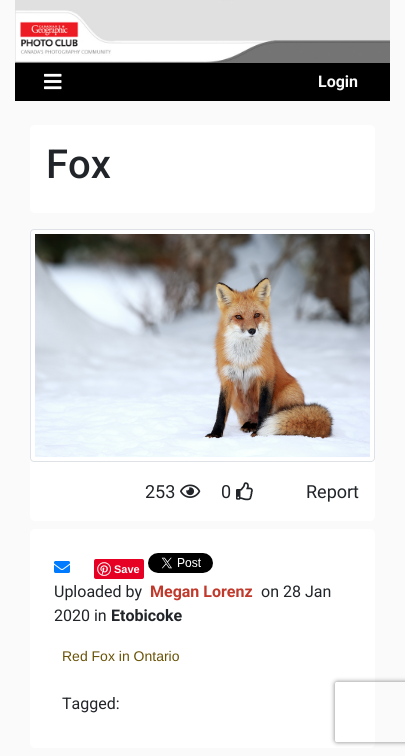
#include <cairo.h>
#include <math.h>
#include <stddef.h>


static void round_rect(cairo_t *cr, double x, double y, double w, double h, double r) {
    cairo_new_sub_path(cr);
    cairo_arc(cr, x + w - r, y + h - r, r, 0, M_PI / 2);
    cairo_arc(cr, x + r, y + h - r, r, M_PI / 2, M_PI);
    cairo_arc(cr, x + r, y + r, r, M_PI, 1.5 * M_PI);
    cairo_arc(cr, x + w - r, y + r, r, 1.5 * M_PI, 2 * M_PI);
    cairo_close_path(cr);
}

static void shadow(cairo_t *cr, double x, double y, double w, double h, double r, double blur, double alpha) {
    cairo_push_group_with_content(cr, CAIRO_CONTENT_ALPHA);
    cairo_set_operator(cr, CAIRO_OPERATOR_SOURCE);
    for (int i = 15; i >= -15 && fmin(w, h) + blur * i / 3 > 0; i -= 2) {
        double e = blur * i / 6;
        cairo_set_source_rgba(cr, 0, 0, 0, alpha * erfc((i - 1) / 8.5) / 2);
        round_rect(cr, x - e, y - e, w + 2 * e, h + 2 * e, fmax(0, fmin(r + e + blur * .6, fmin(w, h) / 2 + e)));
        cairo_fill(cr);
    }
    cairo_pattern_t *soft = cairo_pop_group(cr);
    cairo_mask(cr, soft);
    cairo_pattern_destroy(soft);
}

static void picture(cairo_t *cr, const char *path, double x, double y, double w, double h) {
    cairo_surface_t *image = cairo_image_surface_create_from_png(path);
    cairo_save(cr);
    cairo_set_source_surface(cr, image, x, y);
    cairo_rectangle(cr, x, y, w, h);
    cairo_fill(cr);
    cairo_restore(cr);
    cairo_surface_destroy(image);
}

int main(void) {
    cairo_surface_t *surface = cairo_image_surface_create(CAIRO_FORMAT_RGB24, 405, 756);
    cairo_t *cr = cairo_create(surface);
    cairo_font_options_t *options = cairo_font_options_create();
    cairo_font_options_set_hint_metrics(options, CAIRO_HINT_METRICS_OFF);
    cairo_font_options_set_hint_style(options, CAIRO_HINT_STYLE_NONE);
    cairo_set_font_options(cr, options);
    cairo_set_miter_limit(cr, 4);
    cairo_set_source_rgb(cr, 0.98, 0.98, 0.98);
    cairo_paint(cr);
    picture(cr, "img1.png", 15, 0, 375, 63);
    cairo_set_source_rgb(cr, 0, 0, 0);
    cairo_rectangle(cr, 15, 63, 375, 38);
    cairo_fill(cr);
    picture(cr, "img2.png", 44, 73, 18, 17);
    cairo_select_font_face(cr, "Roboto", CAIRO_FONT_SLANT_NORMAL, CAIRO_FONT_WEIGHT_BOLD);
    cairo_set_font_size(cr, 16);
    cairo_set_source_rgb(cr, 0.973, 0.976, 0.98);
    cairo_move_to(cr, 318, 87);
    cairo_show_text(cr, "Login");
    cairo_set_source_rgb(cr, 1, 1, 1);
    round_rect(cr, 30, 125, 345, 88, 5);
    cairo_fill(cr);
    cairo_select_font_face(cr, "Roboto Medium", CAIRO_FONT_SLANT_NORMAL, CAIRO_FONT_WEIGHT_NORMAL);
    cairo_set_font_size(cr, 40);
    cairo_set_source_rgb(cr, 0.129, 0.145, 0.161);
    cairo_move_to(cr, 46, 178);
    cairo_show_text(cr, "Fox");
    cairo_set_source_rgb(cr, 1, 1, 1);
    round_rect(cr, 30, 229, 345, 292, 5);
    cairo_fill(cr);
    round_rect(cr, 30.5, 229.5, 344, 232, 3.5);
    cairo_set_source_rgb(cr, 0.871, 0.886, 0.902);
    cairo_set_line_width(cr, 1);
    cairo_stroke(cr);
    picture(cr, "img3.png", 35, 234, 335, 223);
    cairo_select_font_face(cr, "Roboto", CAIRO_FONT_SLANT_NORMAL, CAIRO_FONT_WEIGHT_NORMAL);
    cairo_set_font_size(cr, 18);
    cairo_set_source_rgb(cr, 0.129, 0.145, 0.161);
    cairo_move_to(cr, 145, 498);
    cairo_show_text(cr, "253");
    picture(cr, "img4.png", 180, 484, 21, 14);
    cairo_move_to(cr, 221, 498);
    cairo_show_text(cr, "0");
    picture(cr, "img5.png", 236, 482, 17, 19);
    cairo_move_to(cr, 306, 498);
    cairo_show_text(cr, "Report");
    cairo_set_source_rgb(cr, 1, 1, 1);
    round_rect(cr, 30, 529, 345, 219, 5);
    cairo_fill(cr);
    picture(cr, "img6.png", 54, 561, 16, 12);
    cairo_set_source_rgb(cr, 0.902, 0, 0.137);
    round_rect(cr, 94, 559, 50, 20, 2);
    cairo_fill(cr);
    picture(cr, "img7.png", 97, 562, 14, 14);
    cairo_select_font_face(cr, "Liberation Sans", CAIRO_FONT_SLANT_NORMAL, CAIRO_FONT_WEIGHT_BOLD);
    cairo_set_font_size(cr, 11);
    cairo_set_source_rgb(cr, 1, 1, 1);
    cairo_move_to(cr, 114, 573);
    cairo_show_text(cr, "Save");
    picture(cr, "img8.png", 148, 553, 65, 20);
    cairo_select_font_face(cr, "Roboto", CAIRO_FONT_SLANT_NORMAL, CAIRO_FONT_WEIGHT_NORMAL);
    cairo_set_font_size(cr, 16);
    cairo_set_source_rgb(cr, 0.129, 0.145, 0.161);
    cairo_move_to(cr, 54, 597);
    cairo_show_text(cr, "Uploaded by");
    cairo_select_font_face(cr, "Roboto", CAIRO_FONT_SLANT_NORMAL, CAIRO_FONT_WEIGHT_BOLD);
    cairo_set_source_rgb(cr, 0.753, 0.224, 0.169);
    cairo_move_to(cr, 150, 597);
    cairo_show_text(cr, "Megan Lorenz");
    cairo_select_font_face(cr, "Roboto", CAIRO_FONT_SLANT_NORMAL, CAIRO_FONT_WEIGHT_NORMAL);
    cairo_set_source_rgb(cr, 0.129, 0.145, 0.161);
    cairo_move_to(cr, 261, 597);
    cairo_show_text(cr, "on 28 Jan");
    cairo_move_to(cr, 54, 621);
    cairo_show_text(cr, "2020 in");
    cairo_select_font_face(cr, "Roboto", CAIRO_FONT_SLANT_NORMAL, CAIRO_FONT_WEIGHT_BOLD);
    cairo_move_to(cr, 111, 621);
    cairo_show_text(cr, "Etobicoke");
    cairo_select_font_face(cr, "Liberation Sans", CAIRO_FONT_SLANT_NORMAL, CAIRO_FONT_WEIGHT_NORMAL);
    cairo_set_font_size(cr, 14);
    cairo_set_source_rgb(cr, 0.408, 0.322, 0.024);
    cairo_move_to(cr, 62, 661);
    cairo_show_text(cr, "Red Fox in Ontario");
    cairo_select_font_face(cr, "Roboto", CAIRO_FONT_SLANT_NORMAL, CAIRO_FONT_WEIGHT_NORMAL);
    cairo_set_font_size(cr, 16);
    cairo_set_source_rgb(cr, 0.129, 0.145, 0.161);
    cairo_move_to(cr, 62, 709);
    cairo_show_text(cr, "Tagged:");
    cairo_save(cr);
    cairo_set_fill_rule(cr, CAIRO_FILL_RULE_EVEN_ODD);
    cairo_new_path(cr);
    cairo_move_to(cr, 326, 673);
    cairo_line_to(cr, 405, 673);
    cairo_line_to(cr, 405, 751);
    cairo_line_to(cr, 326, 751);
    cairo_close_path(cr);
    cairo_move_to(cr, 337, 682);
    cairo_line_to(cr, 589, 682);
    cairo_curve_to(cr, 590, 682, 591, 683, 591, 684);
    cairo_line_to(cr, 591, 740);
    cairo_curve_to(cr, 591, 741, 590, 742, 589, 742);
    cairo_line_to(cr, 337, 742);
    cairo_curve_to(cr, 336, 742, 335, 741, 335, 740);
    cairo_line_to(cr, 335, 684);
    cairo_curve_to(cr, 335, 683, 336, 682, 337, 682);
    cairo_close_path(cr);
    cairo_clip(cr);
    cairo_set_source_rgb(cr, 0.502, 0.502, 0.502);
    shadow(cr, 335, 682, 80, 60, 2, 2.5, 1);
    cairo_restore(cr);
    cairo_surface_write_to_png(surface, "page.png");
    cairo_font_options_destroy(options);
    cairo_destroy(cr);
    cairo_surface_destroy(surface);
    return 0;
}
